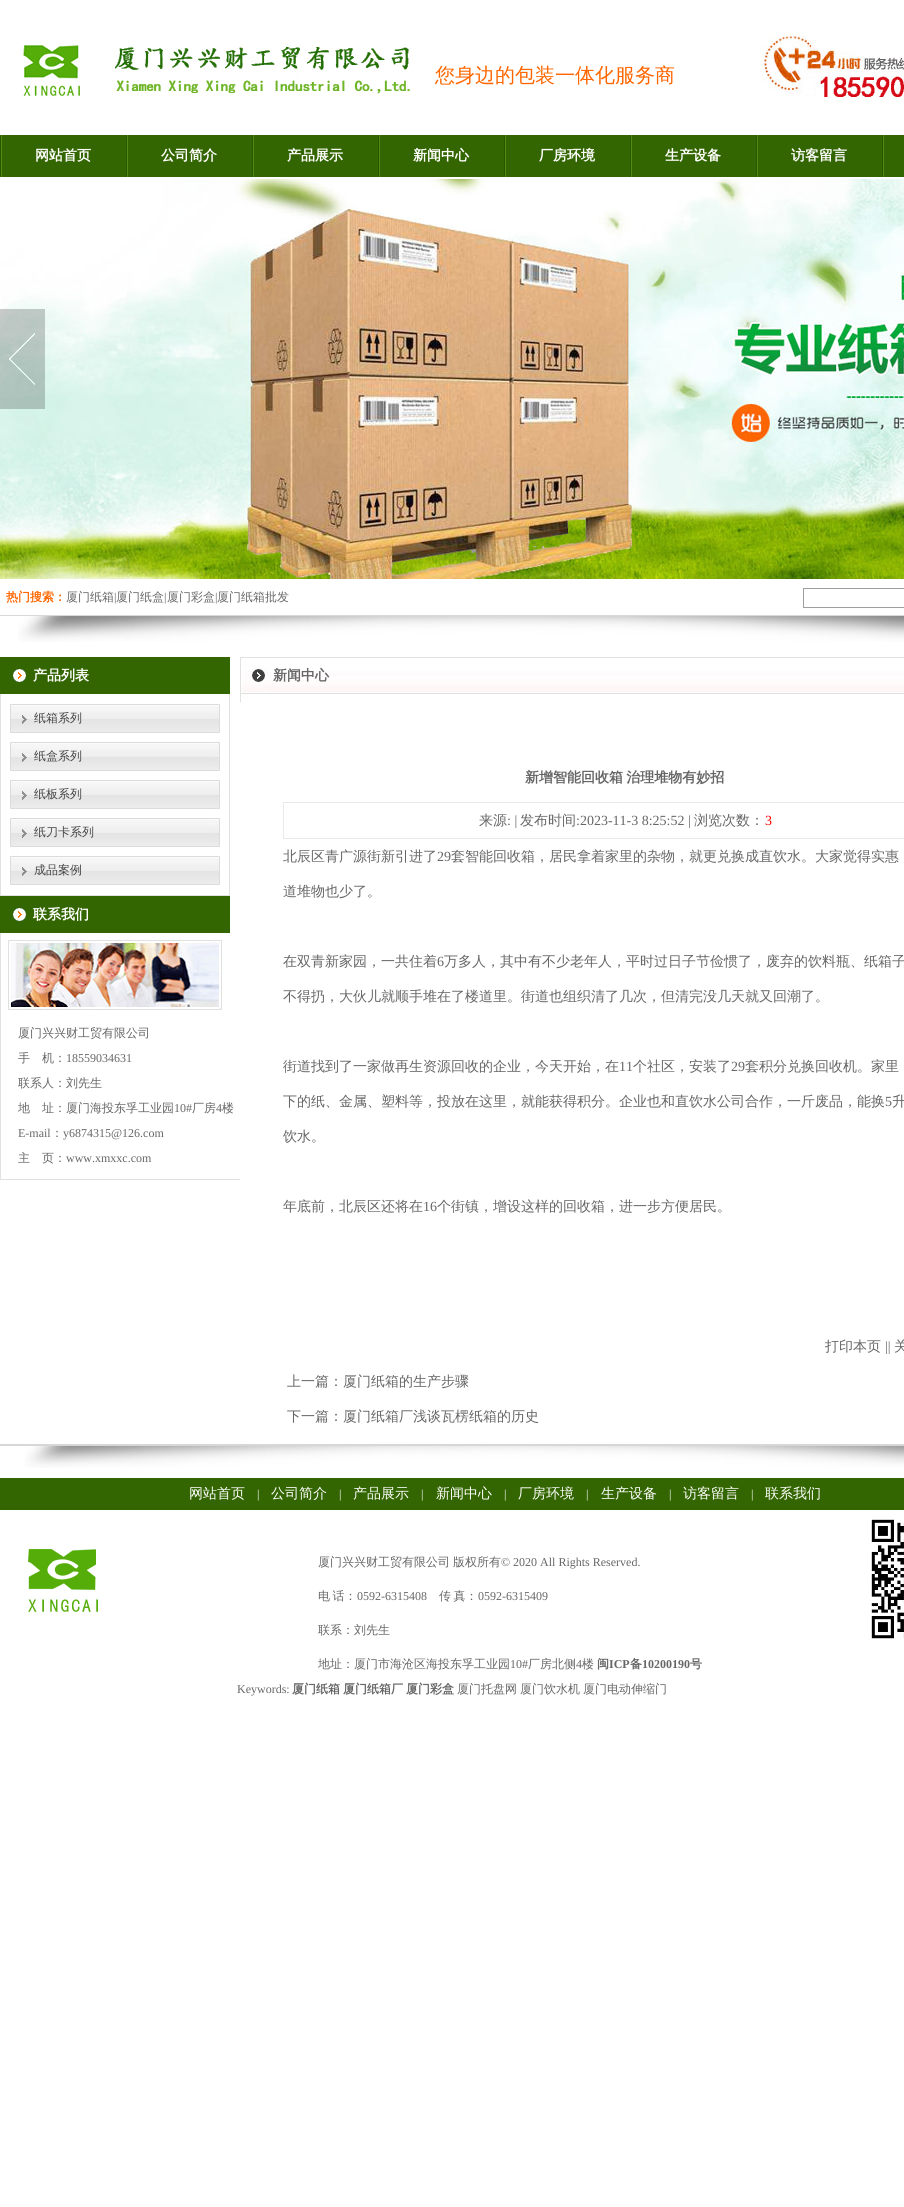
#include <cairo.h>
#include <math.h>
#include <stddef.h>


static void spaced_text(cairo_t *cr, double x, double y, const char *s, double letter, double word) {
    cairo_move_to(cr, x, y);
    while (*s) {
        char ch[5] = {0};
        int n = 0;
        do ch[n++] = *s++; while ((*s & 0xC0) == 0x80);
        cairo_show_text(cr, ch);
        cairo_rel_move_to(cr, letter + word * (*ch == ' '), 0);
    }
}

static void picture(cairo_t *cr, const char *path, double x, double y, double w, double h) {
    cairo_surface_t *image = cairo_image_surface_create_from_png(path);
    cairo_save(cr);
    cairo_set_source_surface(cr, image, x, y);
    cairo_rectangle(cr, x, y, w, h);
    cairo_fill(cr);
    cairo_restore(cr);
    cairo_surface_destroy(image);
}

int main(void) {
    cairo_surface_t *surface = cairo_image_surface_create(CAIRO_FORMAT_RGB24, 904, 2207);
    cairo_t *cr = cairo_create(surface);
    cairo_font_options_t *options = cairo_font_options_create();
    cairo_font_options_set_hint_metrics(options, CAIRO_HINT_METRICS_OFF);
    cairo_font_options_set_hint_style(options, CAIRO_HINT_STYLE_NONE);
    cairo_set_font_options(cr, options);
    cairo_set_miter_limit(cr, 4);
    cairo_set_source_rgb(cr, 1, 1, 1);
    cairo_paint(cr);
    picture(cr, "img1.png", 18, 45, 62, 54);
    picture(cr, "img2.png", 114, 43, 296, 51);
    cairo_select_font_face(cr, "WenQuanYi Zen Hei Medium", CAIRO_FONT_SLANT_NORMAL, CAIRO_FONT_WEIGHT_NORMAL);
    cairo_set_font_size(cr, 20);
    cairo_set_source_rgb(cr, 1, 0.4, 0);
    cairo_move_to(cr, 435, 82);
    cairo_show_text(cr, "您身边的包装一体化服务商");
    picture(cr, "img3.png", 761, 35, 143, 62);
    cairo_set_source_rgb(cr, 0.2, 0.4, 0);
    cairo_rectangle(cr, 2, 135, 902, 42);
    cairo_fill(cr);
    picture(cr, "img4.png", 0, 135, 2, 42);
    cairo_select_font_face(cr, "WenQuanYi Zen Hei", CAIRO_FONT_SLANT_NORMAL, CAIRO_FONT_WEIGHT_BOLD);
    cairo_set_font_size(cr, 14);
    cairo_set_source_rgb(cr, 1, 1, 1);
    cairo_move_to(cr, 35, 160);
    cairo_show_text(cr, "网站首页");
    picture(cr, "img4.png", 126, 135, 2, 42);
    cairo_move_to(cr, 161, 160);
    cairo_show_text(cr, "公司简介");
    picture(cr, "img4.png", 252, 135, 2, 42);
    cairo_move_to(cr, 287, 160);
    cairo_show_text(cr, "产品展示");
    picture(cr, "img4.png", 378, 135, 2, 42);
    cairo_move_to(cr, 413, 160);
    cairo_show_text(cr, "新闻中心");
    picture(cr, "img4.png", 504, 135, 2, 42);
    cairo_move_to(cr, 539, 160);
    cairo_show_text(cr, "厂房环境");
    picture(cr, "img4.png", 630, 135, 2, 42);
    cairo_move_to(cr, 665, 160);
    cairo_show_text(cr, "生产设备");
    picture(cr, "img4.png", 756, 135, 2, 42);
    cairo_move_to(cr, 791, 160);
    cairo_show_text(cr, "访客留言");
    picture(cr, "img4.png", 882, 135, 2, 42);
    picture(cr, "img5.png", 0, 179, 904, 400);
    picture(cr, "img6.png", 0, 309, 45, 100);
    cairo_set_source_rgb(cr, 0.843, 0.843, 0.843);
    cairo_rectangle(cr, 0, 615, 904, 1);
    cairo_fill(cr);
    cairo_set_font_size(cr, 12);
    cairo_set_source_rgb(cr, 1, 0.4, 0);
    cairo_move_to(cr, 6, 601);
    cairo_show_text(cr, "热门搜索：");
    cairo_select_font_face(cr, "WenQuanYi Zen Hei Medium", CAIRO_FONT_SLANT_NORMAL, CAIRO_FONT_WEIGHT_NORMAL);
    cairo_set_source_rgb(cr, 0.4, 0.4, 0.4);
    cairo_move_to(cr, 66, 601);
    cairo_show_text(cr, "厦门纸箱");
    cairo_select_font_face(cr, "Liberation Serif", CAIRO_FONT_SLANT_NORMAL, CAIRO_FONT_WEIGHT_NORMAL);
    cairo_move_to(cr, 114, 601);
    cairo_show_text(cr, "|");
    cairo_select_font_face(cr, "WenQuanYi Zen Hei Medium", CAIRO_FONT_SLANT_NORMAL, CAIRO_FONT_WEIGHT_NORMAL);
    cairo_move_to(cr, 116, 601);
    cairo_show_text(cr, "厦门纸盒");
    cairo_select_font_face(cr, "Liberation Serif", CAIRO_FONT_SLANT_NORMAL, CAIRO_FONT_WEIGHT_NORMAL);
    cairo_move_to(cr, 164, 601);
    cairo_show_text(cr, "|");
    cairo_select_font_face(cr, "WenQuanYi Zen Hei Medium", CAIRO_FONT_SLANT_NORMAL, CAIRO_FONT_WEIGHT_NORMAL);
    cairo_move_to(cr, 167, 601);
    cairo_show_text(cr, "厦门彩盒");
    cairo_select_font_face(cr, "Liberation Serif", CAIRO_FONT_SLANT_NORMAL, CAIRO_FONT_WEIGHT_NORMAL);
    cairo_move_to(cr, 215, 601);
    cairo_show_text(cr, "|");
    cairo_select_font_face(cr, "WenQuanYi Zen Hei Medium", CAIRO_FONT_SLANT_NORMAL, CAIRO_FONT_WEIGHT_NORMAL);
    cairo_move_to(cr, 217, 601);
    cairo_show_text(cr, "厦门纸箱批发");
    cairo_rectangle(cr, 803.5, 588.5, 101, 19);
    cairo_set_source_rgb(cr, 0.624, 0.624, 0.624);
    cairo_set_line_width(cr, 1);
    cairo_stroke(cr);
    picture(cr, "img7.png", 18, 616, 886, 26);
    picture(cr, "img8.png", 0, 657, 230, 37);
    cairo_select_font_face(cr, "WenQuanYi Zen Hei", CAIRO_FONT_SLANT_NORMAL, CAIRO_FONT_WEIGHT_BOLD);
    cairo_set_font_size(cr, 14);
    cairo_set_source_rgb(cr, 1, 1, 1);
    cairo_move_to(cr, 33, 680);
    cairo_show_text(cr, "产品列表");
    cairo_set_source_rgb(cr, 0.882, 0.882, 0.882);
    cairo_rectangle(cr, 229, 694, 1, 202);
    cairo_fill(cr);
    cairo_rectangle(cr, 0, 895, 230, 1);
    cairo_fill(cr);
    cairo_rectangle(cr, 0, 694, 1, 202);
    cairo_fill(cr);
    picture(cr, "img9.png", 10, 703, 210, 182);
    cairo_select_font_face(cr, "WenQuanYi Zen Hei Medium", CAIRO_FONT_SLANT_NORMAL, CAIRO_FONT_WEIGHT_NORMAL);
    cairo_set_font_size(cr, 12);
    cairo_set_source_rgb(cr, 0.267, 0.267, 0.267);
    cairo_move_to(cr, 34, 722);
    cairo_show_text(cr, "纸箱系列");
    cairo_move_to(cr, 34, 760);
    cairo_show_text(cr, "纸盒系列");
    cairo_move_to(cr, 34, 798);
    cairo_show_text(cr, "纸板系列");
    cairo_move_to(cr, 34, 836);
    cairo_show_text(cr, "纸刀卡系列");
    cairo_move_to(cr, 34, 874);
    cairo_show_text(cr, "成品案例");
    picture(cr, "img8.png", 0, 896, 230, 37);
    cairo_select_font_face(cr, "WenQuanYi Zen Hei", CAIRO_FONT_SLANT_NORMAL, CAIRO_FONT_WEIGHT_BOLD);
    cairo_set_font_size(cr, 14);
    cairo_set_source_rgb(cr, 1, 1, 1);
    cairo_move_to(cr, 33, 919);
    cairo_show_text(cr, "联系我们");
    cairo_set_source_rgb(cr, 0.882, 0.882, 0.882);
    cairo_rectangle(cr, 0, 1179, 240, 1);
    cairo_fill(cr);
    cairo_rectangle(cr, 0, 933, 1, 247);
    cairo_fill(cr);
    picture(cr, "img10.png", 8, 940, 214, 70);
    cairo_select_font_face(cr, "WenQuanYi Zen Hei Medium", CAIRO_FONT_SLANT_NORMAL, CAIRO_FONT_WEIGHT_NORMAL);
    cairo_set_font_size(cr, 12);
    cairo_set_source_rgb(cr, 0.4, 0.4, 0.4);
    cairo_move_to(cr, 18, 1037);
    cairo_show_text(cr, "厦门兴兴财工贸有限公司");
    cairo_move_to(cr, 18, 1062);
    cairo_show_text(cr, "手　机：");
    cairo_select_font_face(cr, "Liberation Serif", CAIRO_FONT_SLANT_NORMAL, CAIRO_FONT_WEIGHT_NORMAL);
    cairo_move_to(cr, 66, 1062);
    cairo_show_text(cr, "18559034631");
    cairo_select_font_face(cr, "WenQuanYi Zen Hei Medium", CAIRO_FONT_SLANT_NORMAL, CAIRO_FONT_WEIGHT_NORMAL);
    cairo_move_to(cr, 18, 1087);
    cairo_show_text(cr, "联系人：刘先生");
    cairo_move_to(cr, 18, 1112);
    cairo_show_text(cr, "地　址：厦门海投东孚工业园");
    cairo_select_font_face(cr, "Liberation Serif", CAIRO_FONT_SLANT_NORMAL, CAIRO_FONT_WEIGHT_NORMAL);
    cairo_move_to(cr, 174, 1112);
    cairo_show_text(cr, "10#");
    cairo_select_font_face(cr, "WenQuanYi Zen Hei Medium", CAIRO_FONT_SLANT_NORMAL, CAIRO_FONT_WEIGHT_NORMAL);
    cairo_move_to(cr, 192, 1112);
    cairo_show_text(cr, "厂房");
    cairo_select_font_face(cr, "Liberation Serif", CAIRO_FONT_SLANT_NORMAL, CAIRO_FONT_WEIGHT_NORMAL);
    cairo_move_to(cr, 216, 1112);
    cairo_show_text(cr, "4");
    cairo_select_font_face(cr, "WenQuanYi Zen Hei Medium", CAIRO_FONT_SLANT_NORMAL, CAIRO_FONT_WEIGHT_NORMAL);
    cairo_move_to(cr, 222, 1112);
    cairo_show_text(cr, "楼");
    cairo_select_font_face(cr, "Liberation Serif", CAIRO_FONT_SLANT_NORMAL, CAIRO_FONT_WEIGHT_NORMAL);
    cairo_move_to(cr, 18, 1137);
    cairo_show_text(cr, "E-mail");
    cairo_select_font_face(cr, "WenQuanYi Zen Hei Medium", CAIRO_FONT_SLANT_NORMAL, CAIRO_FONT_WEIGHT_NORMAL);
    cairo_move_to(cr, 51, 1137);
    cairo_show_text(cr, "：");
    cairo_select_font_face(cr, "Liberation Serif", CAIRO_FONT_SLANT_NORMAL, CAIRO_FONT_WEIGHT_NORMAL);
    cairo_move_to(cr, 63, 1137);
    cairo_show_text(cr, "y6874315@126.com");
    cairo_select_font_face(cr, "WenQuanYi Zen Hei Medium", CAIRO_FONT_SLANT_NORMAL, CAIRO_FONT_WEIGHT_NORMAL);
    cairo_move_to(cr, 18, 1162);
    cairo_show_text(cr, "主　页：");
    cairo_select_font_face(cr, "Liberation Serif", CAIRO_FONT_SLANT_NORMAL, CAIRO_FONT_WEIGHT_NORMAL);
    cairo_move_to(cr, 66, 1162);
    cairo_show_text(cr, "www.xmxxc.com");
    picture(cr, "img11.png", 240, 657, 664, 45);
    cairo_select_font_face(cr, "WenQuanYi Zen Hei", CAIRO_FONT_SLANT_NORMAL, CAIRO_FONT_WEIGHT_BOLD);
    cairo_set_font_size(cr, 14);
    cairo_move_to(cr, 273, 680);
    cairo_show_text(cr, "新闻中心");
    spaced_text(cr, 525, 782, "新增智能回收箱 治理堆物有妙招", 0, -1);
    cairo_rectangle(cr, 283.5, 802.5, 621, 36);
    cairo_set_source_rgb(cr, 0.914, 0.914, 0.914);
    cairo_stroke(cr);
    cairo_select_font_face(cr, "WenQuanYi Zen Hei Medium", CAIRO_FONT_SLANT_NORMAL, CAIRO_FONT_WEIGHT_NORMAL);
    cairo_set_source_rgb(cr, 0.4, 0.4, 0.4);
    cairo_move_to(cr, 479, 825);
    cairo_show_text(cr, "来源");
    cairo_select_font_face(cr, "Liberation Serif", CAIRO_FONT_SLANT_NORMAL, CAIRO_FONT_WEIGHT_NORMAL);
    cairo_move_to(cr, 507, 825);
    cairo_show_text(cr, ": |");
    cairo_select_font_face(cr, "WenQuanYi Zen Hei Medium", CAIRO_FONT_SLANT_NORMAL, CAIRO_FONT_WEIGHT_NORMAL);
    cairo_move_to(cr, 520, 825);
    cairo_show_text(cr, "发布时间");
    cairo_select_font_face(cr, "Liberation Serif", CAIRO_FONT_SLANT_NORMAL, CAIRO_FONT_WEIGHT_NORMAL);
    cairo_move_to(cr, 576, 825);
    cairo_show_text(cr, ":2023-11-3 8:25:52 |");
    cairo_select_font_face(cr, "WenQuanYi Zen Hei Medium", CAIRO_FONT_SLANT_NORMAL, CAIRO_FONT_WEIGHT_NORMAL);
    cairo_move_to(cr, 694, 825);
    cairo_show_text(cr, "浏览次数：");
    cairo_select_font_face(cr, "Liberation Serif", CAIRO_FONT_SLANT_NORMAL, CAIRO_FONT_WEIGHT_NORMAL);
    cairo_set_source_rgb(cr, 1, 0, 0);
    cairo_move_to(cr, 765, 825);
    cairo_show_text(cr, "3");
    cairo_select_font_face(cr, "WenQuanYi Zen Hei Medium", CAIRO_FONT_SLANT_NORMAL, CAIRO_FONT_WEIGHT_NORMAL);
    cairo_set_source_rgb(cr, 0.4, 0.4, 0.4);
    cairo_move_to(cr, 283, 861);
    cairo_show_text(cr, "北辰区青广源街新引进了");
    cairo_select_font_face(cr, "Liberation Serif", CAIRO_FONT_SLANT_NORMAL, CAIRO_FONT_WEIGHT_NORMAL);
    cairo_move_to(cr, 437, 861);
    cairo_show_text(cr, "29");
    cairo_select_font_face(cr, "WenQuanYi Zen Hei Medium", CAIRO_FONT_SLANT_NORMAL, CAIRO_FONT_WEIGHT_NORMAL);
    cairo_move_to(cr, 451, 861);
    cairo_show_text(cr, "套智能回收箱，居民拿着家里的杂物，就更兑换成直饮水。大家觉得实惠");
    cairo_move_to(cr, 283, 896);
    cairo_show_text(cr, "道堆物也少了。");
    cairo_move_to(cr, 283, 966);
    cairo_show_text(cr, "在双青新家园，一共住着");
    cairo_select_font_face(cr, "Liberation Serif", CAIRO_FONT_SLANT_NORMAL, CAIRO_FONT_WEIGHT_NORMAL);
    cairo_move_to(cr, 437, 966);
    cairo_show_text(cr, "6");
    cairo_select_font_face(cr, "WenQuanYi Zen Hei Medium", CAIRO_FONT_SLANT_NORMAL, CAIRO_FONT_WEIGHT_NORMAL);
    cairo_move_to(cr, 444, 966);
    cairo_show_text(cr, "万多人，其中有不少老年人，平时过日子节俭惯了，废弃的饮料瓶、纸箱子");
    cairo_move_to(cr, 283, 1001);
    cairo_show_text(cr, "不得扔，大伙儿就顺手堆在了楼道里。街道也组织清了几次，但清完没几天就又回潮了。");
    cairo_move_to(cr, 283, 1071);
    cairo_show_text(cr, "街道找到了一家做再生资源回收的企业，今天开始，在");
    cairo_select_font_face(cr, "Liberation Serif", CAIRO_FONT_SLANT_NORMAL, CAIRO_FONT_WEIGHT_NORMAL);
    cairo_move_to(cr, 619, 1071);
    cairo_show_text(cr, "11");
    cairo_select_font_face(cr, "WenQuanYi Zen Hei Medium", CAIRO_FONT_SLANT_NORMAL, CAIRO_FONT_WEIGHT_NORMAL);
    cairo_move_to(cr, 633, 1071);
    cairo_show_text(cr, "个社区，安装了");
    cairo_select_font_face(cr, "Liberation Serif", CAIRO_FONT_SLANT_NORMAL, CAIRO_FONT_WEIGHT_NORMAL);
    cairo_move_to(cr, 731, 1071);
    cairo_show_text(cr, "29");
    cairo_select_font_face(cr, "WenQuanYi Zen Hei Medium", CAIRO_FONT_SLANT_NORMAL, CAIRO_FONT_WEIGHT_NORMAL);
    cairo_move_to(cr, 745, 1071);
    cairo_show_text(cr, "套积分兑换回收机。家里");
    cairo_move_to(cr, 283, 1106);
    cairo_show_text(cr, "下的纸、金属、塑料等，投放在这里，就能获得积分。企业也和直饮水公司合作，一斤废品，能换");
    cairo_select_font_face(cr, "Liberation Serif", CAIRO_FONT_SLANT_NORMAL, CAIRO_FONT_WEIGHT_NORMAL);
    cairo_move_to(cr, 885, 1106);
    cairo_show_text(cr, "5");
    cairo_select_font_face(cr, "WenQuanYi Zen Hei Medium", CAIRO_FONT_SLANT_NORMAL, CAIRO_FONT_WEIGHT_NORMAL);
    cairo_move_to(cr, 892, 1106);
    cairo_show_text(cr, "升");
    cairo_move_to(cr, 283, 1141);
    cairo_show_text(cr, "饮水。");
    cairo_move_to(cr, 283, 1211);
    cairo_show_text(cr, "年底前，北辰区还将在");
    cairo_select_font_face(cr, "Liberation Serif", CAIRO_FONT_SLANT_NORMAL, CAIRO_FONT_WEIGHT_NORMAL);
    cairo_move_to(cr, 423, 1211);
    cairo_show_text(cr, "16");
    cairo_select_font_face(cr, "WenQuanYi Zen Hei Medium", CAIRO_FONT_SLANT_NORMAL, CAIRO_FONT_WEIGHT_NORMAL);
    cairo_move_to(cr, 437, 1211);
    cairo_show_text(cr, "个街镇，增设这样的回收箱，进一步方便居民。");
    cairo_move_to(cr, 825, 1351);
    cairo_show_text(cr, "打印本页");
    cairo_select_font_face(cr, "Liberation Serif", CAIRO_FONT_SLANT_NORMAL, CAIRO_FONT_WEIGHT_NORMAL);
    cairo_move_to(cr, 885, 1351);
    cairo_show_text(cr, "||");
    cairo_select_font_face(cr, "WenQuanYi Zen Hei Medium", CAIRO_FONT_SLANT_NORMAL, CAIRO_FONT_WEIGHT_NORMAL);
    cairo_move_to(cr, 894, 1351);
    cairo_show_text(cr, "关");
    cairo_move_to(cr, 287, 1386);
    cairo_show_text(cr, "上一篇：厦门纸箱的生产步骤");
    cairo_move_to(cr, 287, 1421);
    cairo_show_text(cr, "下一篇：厦门纸箱厂浅谈瓦楞纸箱的历史");
    cairo_set_source_rgb(cr, 0.843, 0.843, 0.843);
    cairo_rectangle(cr, 0, 1444, 904, 2);
    cairo_fill(cr);
    picture(cr, "img12.png", 25, 1446, 879, 22);
    cairo_set_source_rgb(cr, 0.2, 0.4, 0);
    cairo_rectangle(cr, 0, 1478, 904, 32);
    cairo_fill(cr);
    cairo_set_source_rgb(cr, 1, 1, 1);
    cairo_move_to(cr, 189, 1498);
    cairo_show_text(cr, "网站首页");
    cairo_select_font_face(cr, "Liberation Serif", CAIRO_FONT_SLANT_NORMAL, CAIRO_FONT_WEIGHT_NORMAL);
    cairo_set_font_size(cr, 12);
    cairo_move_to(cr, 257, 1498);
    cairo_show_text(cr, "|");
    cairo_select_font_face(cr, "WenQuanYi Zen Hei Medium", CAIRO_FONT_SLANT_NORMAL, CAIRO_FONT_WEIGHT_NORMAL);
    cairo_set_font_size(cr, 14);
    cairo_move_to(cr, 271, 1498);
    cairo_show_text(cr, "公司简介");
    cairo_select_font_face(cr, "Liberation Serif", CAIRO_FONT_SLANT_NORMAL, CAIRO_FONT_WEIGHT_NORMAL);
    cairo_set_font_size(cr, 12);
    cairo_move_to(cr, 339, 1498);
    cairo_show_text(cr, "|");
    cairo_select_font_face(cr, "WenQuanYi Zen Hei Medium", CAIRO_FONT_SLANT_NORMAL, CAIRO_FONT_WEIGHT_NORMAL);
    cairo_set_font_size(cr, 14);
    cairo_move_to(cr, 353, 1498);
    cairo_show_text(cr, "产品展示");
    cairo_select_font_face(cr, "Liberation Serif", CAIRO_FONT_SLANT_NORMAL, CAIRO_FONT_WEIGHT_NORMAL);
    cairo_set_font_size(cr, 12);
    cairo_move_to(cr, 421, 1498);
    cairo_show_text(cr, "|");
    cairo_select_font_face(cr, "WenQuanYi Zen Hei Medium", CAIRO_FONT_SLANT_NORMAL, CAIRO_FONT_WEIGHT_NORMAL);
    cairo_set_font_size(cr, 14);
    cairo_move_to(cr, 436, 1498);
    cairo_show_text(cr, "新闻中心");
    cairo_select_font_face(cr, "Liberation Serif", CAIRO_FONT_SLANT_NORMAL, CAIRO_FONT_WEIGHT_NORMAL);
    cairo_set_font_size(cr, 12);
    cairo_move_to(cr, 504, 1498);
    cairo_show_text(cr, "|");
    cairo_select_font_face(cr, "WenQuanYi Zen Hei Medium", CAIRO_FONT_SLANT_NORMAL, CAIRO_FONT_WEIGHT_NORMAL);
    cairo_set_font_size(cr, 14);
    cairo_move_to(cr, 518, 1498);
    cairo_show_text(cr, "厂房环境");
    cairo_select_font_face(cr, "Liberation Serif", CAIRO_FONT_SLANT_NORMAL, CAIRO_FONT_WEIGHT_NORMAL);
    cairo_set_font_size(cr, 12);
    cairo_move_to(cr, 586, 1498);
    cairo_show_text(cr, "|");
    cairo_select_font_face(cr, "WenQuanYi Zen Hei Medium", CAIRO_FONT_SLANT_NORMAL, CAIRO_FONT_WEIGHT_NORMAL);
    cairo_set_font_size(cr, 14);
    cairo_move_to(cr, 601, 1498);
    cairo_show_text(cr, "生产设备");
    cairo_select_font_face(cr, "Liberation Serif", CAIRO_FONT_SLANT_NORMAL, CAIRO_FONT_WEIGHT_NORMAL);
    cairo_set_font_size(cr, 12);
    cairo_move_to(cr, 669, 1498);
    cairo_show_text(cr, "|");
    cairo_select_font_face(cr, "WenQuanYi Zen Hei Medium", CAIRO_FONT_SLANT_NORMAL, CAIRO_FONT_WEIGHT_NORMAL);
    cairo_set_font_size(cr, 14);
    cairo_move_to(cr, 683, 1498);
    cairo_show_text(cr, "访客留言");
    cairo_select_font_face(cr, "Liberation Serif", CAIRO_FONT_SLANT_NORMAL, CAIRO_FONT_WEIGHT_NORMAL);
    cairo_set_font_size(cr, 12);
    cairo_move_to(cr, 751, 1498);
    cairo_show_text(cr, "|");
    cairo_select_font_face(cr, "WenQuanYi Zen Hei Medium", CAIRO_FONT_SLANT_NORMAL, CAIRO_FONT_WEIGHT_NORMAL);
    cairo_set_font_size(cr, 14);
    cairo_move_to(cr, 765, 1498);
    cairo_show_text(cr, "联系我们");
    picture(cr, "img13.png", 24, 1549, 74, 66);
    cairo_set_font_size(cr, 12);
    cairo_set_source_rgb(cr, 0.4, 0.4, 0.4);
    cairo_move_to(cr, 318, 1566);
    cairo_show_text(cr, "厦门兴兴财工贸有限公司");
    cairo_move_to(cr, 453, 1566);
    cairo_show_text(cr, "版权所有");
    cairo_select_font_face(cr, "Liberation Serif", CAIRO_FONT_SLANT_NORMAL, CAIRO_FONT_WEIGHT_NORMAL);
    cairo_move_to(cr, 501, 1566);
    cairo_show_text(cr, "© 2020 All Rights Reserved.");
    cairo_select_font_face(cr, "WenQuanYi Zen Hei Medium", CAIRO_FONT_SLANT_NORMAL, CAIRO_FONT_WEIGHT_NORMAL);
    spaced_text(cr, 318, 1600, "电 话：", 0, -1);
    cairo_select_font_face(cr, "Liberation Serif", CAIRO_FONT_SLANT_NORMAL, CAIRO_FONT_WEIGHT_NORMAL);
    cairo_move_to(cr, 357, 1600);
    cairo_show_text(cr, "0592-6315408");
    cairo_select_font_face(cr, "WenQuanYi Zen Hei Medium", CAIRO_FONT_SLANT_NORMAL, CAIRO_FONT_WEIGHT_NORMAL);
    spaced_text(cr, 439, 1600, "传 真：", 0, -1);
    cairo_select_font_face(cr, "Liberation Serif", CAIRO_FONT_SLANT_NORMAL, CAIRO_FONT_WEIGHT_NORMAL);
    cairo_move_to(cr, 478, 1600);
    cairo_show_text(cr, "0592-6315409");
    cairo_select_font_face(cr, "WenQuanYi Zen Hei Medium", CAIRO_FONT_SLANT_NORMAL, CAIRO_FONT_WEIGHT_NORMAL);
    cairo_move_to(cr, 318, 1634);
    cairo_show_text(cr, "联系：刘先生");
    cairo_move_to(cr, 318, 1668);
    cairo_show_text(cr, "地址：厦门市海沧区海投东孚工业园");
    cairo_select_font_face(cr, "Liberation Serif", CAIRO_FONT_SLANT_NORMAL, CAIRO_FONT_WEIGHT_NORMAL);
    cairo_move_to(cr, 510, 1668);
    cairo_show_text(cr, "10#");
    cairo_select_font_face(cr, "WenQuanYi Zen Hei Medium", CAIRO_FONT_SLANT_NORMAL, CAIRO_FONT_WEIGHT_NORMAL);
    cairo_move_to(cr, 528, 1668);
    cairo_show_text(cr, "厂房北侧");
    cairo_select_font_face(cr, "Liberation Serif", CAIRO_FONT_SLANT_NORMAL, CAIRO_FONT_WEIGHT_NORMAL);
    cairo_move_to(cr, 576, 1668);
    cairo_show_text(cr, "4");
    cairo_select_font_face(cr, "WenQuanYi Zen Hei Medium", CAIRO_FONT_SLANT_NORMAL, CAIRO_FONT_WEIGHT_NORMAL);
    cairo_move_to(cr, 582, 1668);
    cairo_show_text(cr, "楼");
    cairo_select_font_face(cr, "WenQuanYi Zen Hei", CAIRO_FONT_SLANT_NORMAL, CAIRO_FONT_WEIGHT_BOLD);
    cairo_move_to(cr, 597, 1668);
    cairo_show_text(cr, "闽");
    cairo_select_font_face(cr, "Liberation Serif", CAIRO_FONT_SLANT_NORMAL, CAIRO_FONT_WEIGHT_BOLD);
    cairo_move_to(cr, 609, 1668);
    cairo_show_text(cr, "ICP");
    cairo_select_font_face(cr, "WenQuanYi Zen Hei", CAIRO_FONT_SLANT_NORMAL, CAIRO_FONT_WEIGHT_BOLD);
    cairo_move_to(cr, 630, 1668);
    cairo_show_text(cr, "备");
    cairo_select_font_face(cr, "Liberation Serif", CAIRO_FONT_SLANT_NORMAL, CAIRO_FONT_WEIGHT_BOLD);
    cairo_move_to(cr, 642, 1668);
    cairo_show_text(cr, "10200190");
    cairo_select_font_face(cr, "WenQuanYi Zen Hei", CAIRO_FONT_SLANT_NORMAL, CAIRO_FONT_WEIGHT_BOLD);
    cairo_move_to(cr, 690, 1668);
    cairo_show_text(cr, "号");
    picture(cr, "img14.png", 871, 1519, 33, 120);
    cairo_select_font_face(cr, "Liberation Serif", CAIRO_FONT_SLANT_NORMAL, CAIRO_FONT_WEIGHT_NORMAL);
    cairo_move_to(cr, 237, 1693);
    cairo_show_text(cr, "Keywords:");
    cairo_select_font_face(cr, "WenQuanYi Zen Hei", CAIRO_FONT_SLANT_NORMAL, CAIRO_FONT_WEIGHT_BOLD);
    cairo_move_to(cr, 292, 1693);
    cairo_show_text(cr, "厦门纸箱");
    cairo_move_to(cr, 343, 1693);
    cairo_show_text(cr, "厦门纸箱厂");
    cairo_move_to(cr, 406, 1693);
    cairo_show_text(cr, "厦门彩盒");
    cairo_select_font_face(cr, "WenQuanYi Zen Hei Medium", CAIRO_FONT_SLANT_NORMAL, CAIRO_FONT_WEIGHT_NORMAL);
    cairo_move_to(cr, 457, 1693);
    cairo_show_text(cr, "厦门托盘网");
    cairo_move_to(cr, 520, 1693);
    cairo_show_text(cr, "厦门饮水机");
    cairo_move_to(cr, 583, 1693);
    cairo_show_text(cr, "厦门电动伸缩门");
    cairo_surface_write_to_png(surface, "page.png");
    cairo_font_options_destroy(options);
    cairo_destroy(cr);
    cairo_surface_destroy(surface);
    return 0;
}
